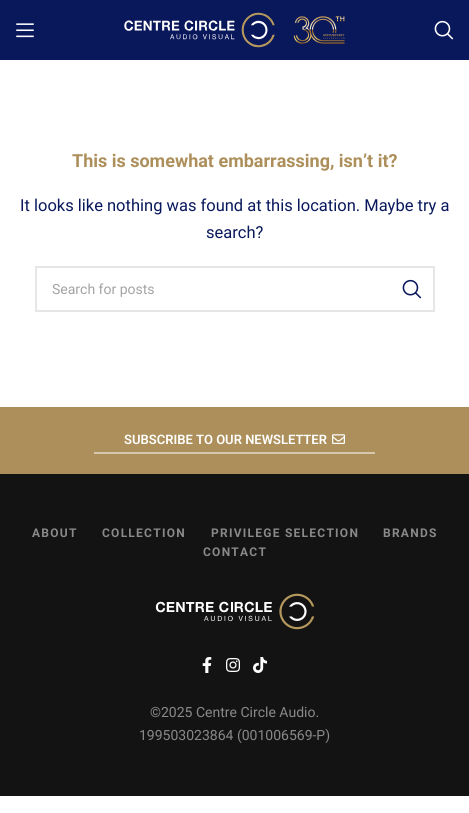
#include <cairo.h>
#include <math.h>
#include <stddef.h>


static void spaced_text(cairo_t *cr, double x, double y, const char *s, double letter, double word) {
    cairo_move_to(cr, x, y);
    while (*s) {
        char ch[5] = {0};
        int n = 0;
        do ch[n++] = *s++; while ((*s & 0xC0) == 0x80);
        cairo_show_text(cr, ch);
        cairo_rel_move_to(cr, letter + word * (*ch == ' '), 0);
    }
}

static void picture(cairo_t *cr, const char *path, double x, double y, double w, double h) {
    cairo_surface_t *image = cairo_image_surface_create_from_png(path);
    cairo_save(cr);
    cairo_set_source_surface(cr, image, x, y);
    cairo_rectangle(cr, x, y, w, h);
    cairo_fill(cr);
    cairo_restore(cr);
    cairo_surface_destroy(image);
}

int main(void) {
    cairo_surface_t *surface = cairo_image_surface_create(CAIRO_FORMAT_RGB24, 469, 813);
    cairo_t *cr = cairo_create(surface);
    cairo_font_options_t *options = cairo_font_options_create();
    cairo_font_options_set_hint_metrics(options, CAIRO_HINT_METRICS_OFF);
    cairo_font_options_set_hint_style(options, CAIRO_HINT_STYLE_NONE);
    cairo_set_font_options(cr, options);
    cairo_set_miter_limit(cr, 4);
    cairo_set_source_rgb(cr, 1, 1, 1);
    cairo_paint(cr);
    cairo_set_source_rgb(cr, 0.039, 0.09, 0.357);
    cairo_rectangle(cr, 0, 0, 469, 60);
    cairo_fill(cr);
    picture(cr, "img1.png", 16, 23, 18, 15);
    picture(cr, "img2.png", 124, 12, 221, 36);
    picture(cr, "img3.png", 434, 20, 20, 20);
    cairo_select_font_face(cr, "Roboto", CAIRO_FONT_SLANT_NORMAL, CAIRO_FONT_WEIGHT_BOLD);
    cairo_set_font_size(cr, 18);
    cairo_set_source_rgb(cr, 0.675, 0.561, 0.353);
    cairo_move_to(cr, 72, 167);
    cairo_show_text(cr, "This is somewhat embarrassing, isn’t it?");
    cairo_select_font_face(cr, "Roboto", CAIRO_FONT_SLANT_NORMAL, CAIRO_FONT_WEIGHT_NORMAL);
    cairo_set_font_size(cr, 16.5);
    cairo_set_source_rgb(cr, 0.035, 0.094, 0.361);
    cairo_move_to(cr, 20, 211);
    cairo_show_text(cr, "It looks like nothing was found at this location. Maybe try a");
    cairo_move_to(cr, 206, 238);
    cairo_show_text(cr, "search?");
    cairo_rectangle(cr, 36, 267, 398, 44);
    cairo_set_source_rgb(cr, 0.902, 0.902, 0.902);
    cairo_stroke(cr);
    cairo_set_font_size(cr, 14);
    cairo_set_source_rgb(cr, 0.639, 0.639, 0.639);
    cairo_move_to(cr, 52, 294);
    cairo_show_text(cr, "Search for posts");
    picture(cr, "img4.png", 402, 279, 20, 20);
    cairo_set_source_rgb(cr, 0.075, 0.075, 0.075);
    cairo_rectangle(cr, 0, 474, 469, 322);
    cairo_fill(cr);
    cairo_set_source_rgb(cr, 0.675, 0.561, 0.353);
    cairo_rectangle(cr, 0, 407, 469, 67);
    cairo_fill(cr);
    cairo_set_source_rgb(cr, 0.839, 0.78, 0.678);
    cairo_rectangle(cr, 94, 452, 281, 2);
    cairo_fill(cr);
    cairo_select_font_face(cr, "Roboto SemiBold", CAIRO_FONT_SLANT_NORMAL, CAIRO_FONT_WEIGHT_NORMAL);
    cairo_set_font_size(cr, 13);
    cairo_set_source_rgb(cr, 1, 1, 1);
    cairo_move_to(cr, 124, 444);
    cairo_show_text(cr, "SUBSCRIBE TO OUR NEWSLETTER");
    picture(cr, "img5.png", 332, 434, 13, 10);
    cairo_select_font_face(cr, "Roboto", CAIRO_FONT_SLANT_NORMAL, CAIRO_FONT_WEIGHT_BOLD);
    cairo_set_font_size(cr, 12);
    cairo_set_source_rgb(cr, 0.537, 0.537, 0.537);
    spaced_text(cr, 32, 537, "ABOUT", 1.25, 0);
    spaced_text(cr, 102, 537, "COLLECTION", 1.25, 0);
    spaced_text(cr, 211, 537, "PRIVILEGE SELECTION", 1.25, 0);
    spaced_text(cr, 383, 537, "BRANDS", 1.25, 0);
    spaced_text(cr, 203, 556, "CONTACT", 1.25, 0);
    picture(cr, "img6.png", 155, 593, 160, 37);
    picture(cr, "img7.png", 202, 657, 10, 16);
    picture(cr, "img8.png", 226, 658, 14, 14);
    picture(cr, "img9.png", 253, 657, 14, 16);
    cairo_select_font_face(cr, "Roboto", CAIRO_FONT_SLANT_NORMAL, CAIRO_FONT_WEIGHT_NORMAL);
    cairo_set_font_size(cr, 14);
    cairo_move_to(cr, 150, 717);
    cairo_show_text(cr, "©2025 Centre Circle Audio.");
    cairo_move_to(cr, 139, 740);
    cairo_show_text(cr, "199503023864 (001006569-P)");
    cairo_surface_write_to_png(surface, "page.png");
    cairo_font_options_destroy(options);
    cairo_destroy(cr);
    cairo_surface_destroy(surface);
    return 0;
}
